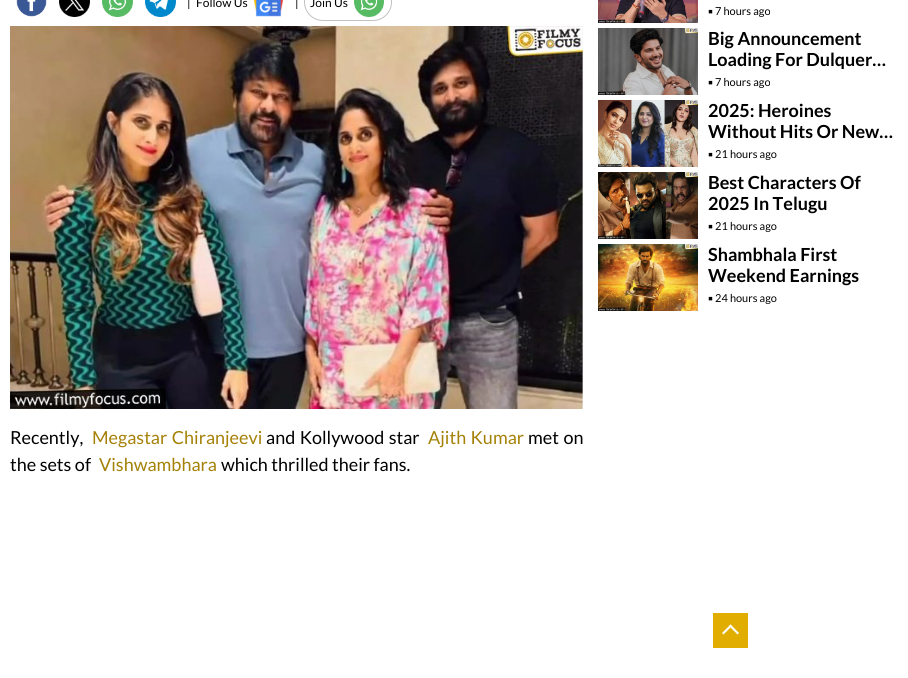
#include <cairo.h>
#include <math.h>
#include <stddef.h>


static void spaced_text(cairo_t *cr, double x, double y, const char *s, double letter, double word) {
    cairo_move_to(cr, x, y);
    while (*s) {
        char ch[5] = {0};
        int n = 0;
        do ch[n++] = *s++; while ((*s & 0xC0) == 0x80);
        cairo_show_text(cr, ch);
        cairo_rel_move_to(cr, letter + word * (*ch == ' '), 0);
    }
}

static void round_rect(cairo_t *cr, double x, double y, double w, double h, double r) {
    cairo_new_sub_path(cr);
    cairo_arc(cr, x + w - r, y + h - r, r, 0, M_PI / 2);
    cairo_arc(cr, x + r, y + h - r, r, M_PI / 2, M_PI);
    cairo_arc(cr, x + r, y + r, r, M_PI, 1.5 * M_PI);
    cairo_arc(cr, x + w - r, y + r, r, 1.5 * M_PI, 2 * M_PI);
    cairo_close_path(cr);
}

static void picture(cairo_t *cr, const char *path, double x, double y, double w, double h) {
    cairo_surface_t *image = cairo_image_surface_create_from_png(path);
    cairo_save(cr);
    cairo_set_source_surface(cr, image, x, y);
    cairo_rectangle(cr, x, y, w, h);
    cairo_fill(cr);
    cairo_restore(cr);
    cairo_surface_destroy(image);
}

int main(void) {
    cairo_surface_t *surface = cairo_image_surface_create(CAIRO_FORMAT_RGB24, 908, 678);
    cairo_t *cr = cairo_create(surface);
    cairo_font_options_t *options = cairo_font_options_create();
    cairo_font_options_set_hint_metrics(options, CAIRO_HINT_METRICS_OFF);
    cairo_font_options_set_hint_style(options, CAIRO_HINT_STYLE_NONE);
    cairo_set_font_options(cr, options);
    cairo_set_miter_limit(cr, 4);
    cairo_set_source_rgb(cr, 1, 1, 1);
    cairo_paint(cr);
    picture(cr, "img1.png", 16, 0, 31, 17);
    picture(cr, "img2.png", 59, 0, 31, 17);
    picture(cr, "img3.png", 102, 0, 31, 17);
    picture(cr, "img4.png", 145, 0, 31, 17);
    cairo_select_font_face(cr, "Lato", CAIRO_FONT_SLANT_NORMAL, CAIRO_FONT_WEIGHT_NORMAL);
    cairo_set_font_size(cr, 12);
    cairo_set_source_rgb(cr, 0, 0, 0);
    cairo_move_to(cr, 187, 7);
    cairo_show_text(cr, "|");
    cairo_move_to(cr, 196, 7);
    cairo_show_text(cr, "Follow Us");
    picture(cr, "img5.png", 253, 0, 31, 17);
    cairo_move_to(cr, 295, 7);
    cairo_show_text(cr, "|");
    round_rect(cr, 304.5, -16.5, 87, 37, 18.5);
    cairo_set_source_rgb(cr, 0.757, 0.757, 0.757);
    cairo_set_line_width(cr, 1);
    cairo_stroke(cr);
    cairo_set_source_rgb(cr, 0, 0, 0);
    cairo_move_to(cr, 310, 7);
    cairo_show_text(cr, "Join Us");
    picture(cr, "img6.png", 354, 0, 30, 17);
    picture(cr, "img7.png", 10, 26, 573, 383);
    cairo_set_font_size(cr, 18);
    cairo_move_to(cr, 10, 444);
    cairo_show_text(cr, "Recently,");
    cairo_set_source_rgb(cr, 0.647, 0.506, 0.031);
    spaced_text(cr, 92, 444, "Megastar Chiranjeevi", 0, 1);
    cairo_set_source_rgb(cr, 0, 0, 0);
    spaced_text(cr, 266, 444, "and Kollywood star", 0, 1);
    cairo_set_source_rgb(cr, 0.647, 0.506, 0.031);
    spaced_text(cr, 428, 444, "Ajith Kumar", 0, 1);
    cairo_set_source_rgb(cr, 0, 0, 0);
    spaced_text(cr, 528, 444, "met on", 0, 1);
    cairo_move_to(cr, 10, 471);
    cairo_show_text(cr, "the sets of");
    cairo_set_source_rgb(cr, 0.647, 0.506, 0.031);
    cairo_move_to(cr, 99, 471);
    cairo_show_text(cr, "Vishwambhara");
    cairo_set_source_rgb(cr, 0, 0, 0);
    cairo_move_to(cr, 221, 471);
    cairo_show_text(cr, "which thrilled their fans.");
    picture(cr, "img8.png", 598, 0, 100, 23);
    cairo_select_font_face(cr, "Liberation Sans", CAIRO_FONT_SLANT_NORMAL, CAIRO_FONT_WEIGHT_BOLD);
    cairo_set_font_size(cr, 14);
    cairo_move_to(cr, 708, 16);
    cairo_show_text(cr, "▪");
    cairo_select_font_face(cr, "Lato", CAIRO_FONT_SLANT_NORMAL, CAIRO_FONT_WEIGHT_NORMAL);
    cairo_set_font_size(cr, 11);
    cairo_move_to(cr, 715, 15);
    cairo_show_text(cr, "7 hours ago");
    picture(cr, "img9.png", 598, 28, 100, 67);
    cairo_select_font_face(cr, "Lato", CAIRO_FONT_SLANT_NORMAL, CAIRO_FONT_WEIGHT_BOLD);
    cairo_set_font_size(cr, 18);
    cairo_move_to(cr, 708, 45);
    cairo_show_text(cr, "Big Announcement");
    cairo_move_to(cr, 708, 66);
    cairo_show_text(cr, "Loading For Dulquer…");
    cairo_select_font_face(cr, "Liberation Sans", CAIRO_FONT_SLANT_NORMAL, CAIRO_FONT_WEIGHT_BOLD);
    cairo_set_font_size(cr, 14);
    cairo_move_to(cr, 708, 87);
    cairo_show_text(cr, "▪");
    cairo_select_font_face(cr, "Lato", CAIRO_FONT_SLANT_NORMAL, CAIRO_FONT_WEIGHT_NORMAL);
    cairo_set_font_size(cr, 11);
    cairo_move_to(cr, 715, 86);
    cairo_show_text(cr, "7 hours ago");
    picture(cr, "img10.png", 598, 100, 100, 67);
    cairo_select_font_face(cr, "Lato", CAIRO_FONT_SLANT_NORMAL, CAIRO_FONT_WEIGHT_BOLD);
    cairo_set_font_size(cr, 18);
    cairo_move_to(cr, 708, 117);
    cairo_show_text(cr, "2025: Heroines");
    cairo_move_to(cr, 708, 138);
    cairo_show_text(cr, "Without Hits Or New…");
    cairo_select_font_face(cr, "Liberation Sans", CAIRO_FONT_SLANT_NORMAL, CAIRO_FONT_WEIGHT_BOLD);
    cairo_set_font_size(cr, 14);
    cairo_move_to(cr, 708, 159);
    cairo_show_text(cr, "▪");
    cairo_select_font_face(cr, "Lato", CAIRO_FONT_SLANT_NORMAL, CAIRO_FONT_WEIGHT_NORMAL);
    cairo_set_font_size(cr, 11);
    cairo_move_to(cr, 715, 158);
    cairo_show_text(cr, "21 hours ago");
    picture(cr, "img11.png", 598, 172, 100, 67);
    cairo_select_font_face(cr, "Lato", CAIRO_FONT_SLANT_NORMAL, CAIRO_FONT_WEIGHT_BOLD);
    cairo_set_font_size(cr, 18);
    cairo_move_to(cr, 708, 189);
    cairo_show_text(cr, "Best Characters Of");
    cairo_move_to(cr, 708, 210);
    cairo_show_text(cr, "2025 In Telugu");
    cairo_select_font_face(cr, "Liberation Sans", CAIRO_FONT_SLANT_NORMAL, CAIRO_FONT_WEIGHT_BOLD);
    cairo_set_font_size(cr, 14);
    cairo_move_to(cr, 708, 231);
    cairo_show_text(cr, "▪");
    cairo_select_font_face(cr, "Lato", CAIRO_FONT_SLANT_NORMAL, CAIRO_FONT_WEIGHT_NORMAL);
    cairo_set_font_size(cr, 11);
    cairo_move_to(cr, 715, 230);
    cairo_show_text(cr, "21 hours ago");
    picture(cr, "img12.png", 598, 244, 100, 67);
    cairo_select_font_face(cr, "Lato", CAIRO_FONT_SLANT_NORMAL, CAIRO_FONT_WEIGHT_BOLD);
    cairo_set_font_size(cr, 18);
    cairo_move_to(cr, 708, 261);
    cairo_show_text(cr, "Shambhala First");
    cairo_move_to(cr, 708, 282);
    cairo_show_text(cr, "Weekend Earnings");
    cairo_select_font_face(cr, "Liberation Sans", CAIRO_FONT_SLANT_NORMAL, CAIRO_FONT_WEIGHT_BOLD);
    cairo_set_font_size(cr, 14);
    cairo_move_to(cr, 708, 303);
    cairo_show_text(cr, "▪");
    cairo_select_font_face(cr, "Lato", CAIRO_FONT_SLANT_NORMAL, CAIRO_FONT_WEIGHT_NORMAL);
    cairo_set_font_size(cr, 11);
    cairo_move_to(cr, 715, 302);
    cairo_show_text(cr, "24 hours ago");
    cairo_set_source_rgb(cr, 0.882, 0.678, 0);
    cairo_rectangle(cr, 713, 613, 35, 35);
    cairo_fill(cr);
    cairo_set_source_rgb(cr, 1, 1, 1);
    cairo_new_path(cr);
    cairo_move_to(cr, 723.5, 634.5);
    cairo_line_to(cr, 722, 633);
    cairo_line_to(cr, 730.5, 624.5);
    cairo_line_to(cr, 732, 626);
    cairo_close_path(cr);
    cairo_fill(cr);
    cairo_new_path(cr);
    cairo_move_to(cr, 737.5, 634.5);
    cairo_line_to(cr, 729, 626);
    cairo_line_to(cr, 730.5, 624.5);
    cairo_line_to(cr, 739, 633);
    cairo_close_path(cr);
    cairo_fill(cr);
    cairo_surface_write_to_png(surface, "page.png");
    cairo_font_options_destroy(options);
    cairo_destroy(cr);
    cairo_surface_destroy(surface);
    return 0;
}
